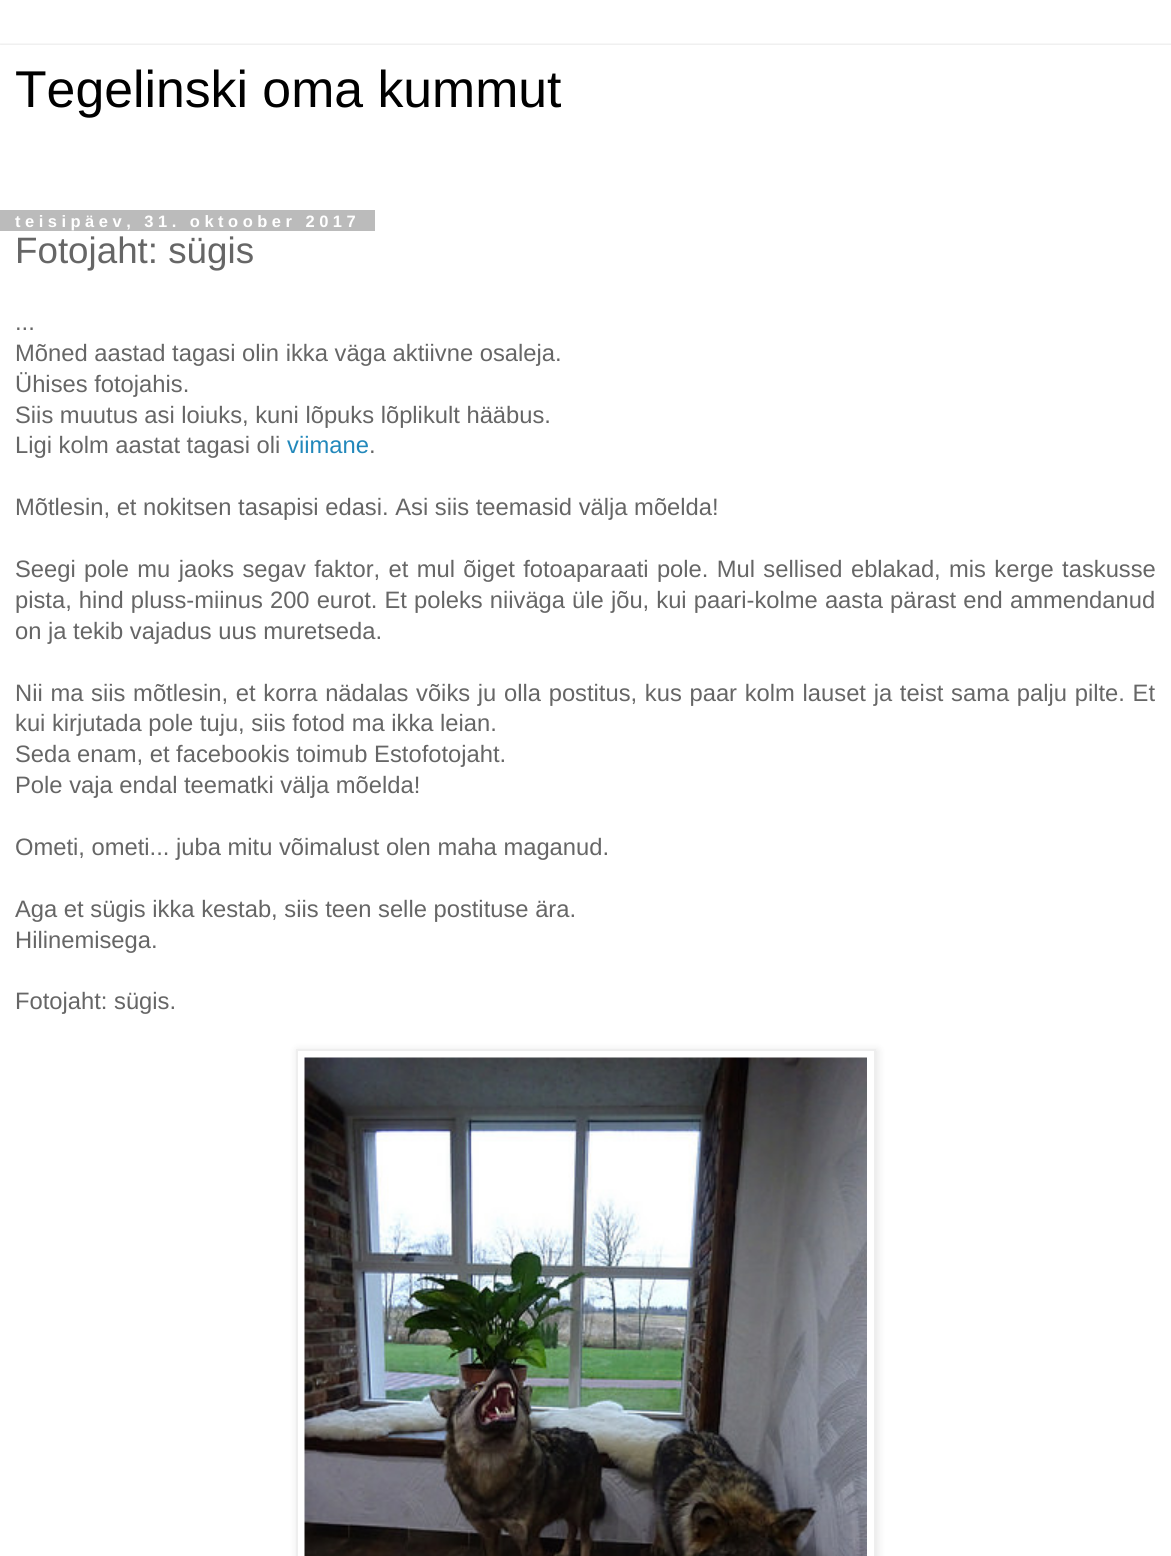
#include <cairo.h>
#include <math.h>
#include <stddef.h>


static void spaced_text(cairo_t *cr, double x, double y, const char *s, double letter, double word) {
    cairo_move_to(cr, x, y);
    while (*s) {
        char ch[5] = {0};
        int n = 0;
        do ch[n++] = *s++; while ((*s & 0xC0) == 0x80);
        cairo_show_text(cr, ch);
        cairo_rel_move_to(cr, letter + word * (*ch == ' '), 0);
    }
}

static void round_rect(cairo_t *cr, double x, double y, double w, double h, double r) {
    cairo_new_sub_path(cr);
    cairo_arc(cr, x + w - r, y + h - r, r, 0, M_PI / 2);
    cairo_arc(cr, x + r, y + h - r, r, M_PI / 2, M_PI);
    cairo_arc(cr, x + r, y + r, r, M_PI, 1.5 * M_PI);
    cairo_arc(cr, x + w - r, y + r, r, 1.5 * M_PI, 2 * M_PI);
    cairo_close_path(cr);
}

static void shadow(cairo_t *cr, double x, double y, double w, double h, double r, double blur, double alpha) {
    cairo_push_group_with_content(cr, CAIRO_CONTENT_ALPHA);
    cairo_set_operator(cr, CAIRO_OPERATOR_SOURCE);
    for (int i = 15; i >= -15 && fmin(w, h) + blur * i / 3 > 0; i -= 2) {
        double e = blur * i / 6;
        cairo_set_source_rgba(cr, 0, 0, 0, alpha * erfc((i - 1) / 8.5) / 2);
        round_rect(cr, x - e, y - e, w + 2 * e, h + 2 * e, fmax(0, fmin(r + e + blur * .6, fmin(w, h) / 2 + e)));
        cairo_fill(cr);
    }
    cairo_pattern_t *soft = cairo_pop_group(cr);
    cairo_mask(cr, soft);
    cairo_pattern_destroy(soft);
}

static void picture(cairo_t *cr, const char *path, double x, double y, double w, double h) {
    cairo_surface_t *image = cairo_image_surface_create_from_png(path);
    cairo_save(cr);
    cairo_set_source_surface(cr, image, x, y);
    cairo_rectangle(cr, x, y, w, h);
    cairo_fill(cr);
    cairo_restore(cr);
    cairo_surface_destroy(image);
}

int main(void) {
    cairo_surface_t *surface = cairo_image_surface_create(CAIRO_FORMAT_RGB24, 1171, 1556);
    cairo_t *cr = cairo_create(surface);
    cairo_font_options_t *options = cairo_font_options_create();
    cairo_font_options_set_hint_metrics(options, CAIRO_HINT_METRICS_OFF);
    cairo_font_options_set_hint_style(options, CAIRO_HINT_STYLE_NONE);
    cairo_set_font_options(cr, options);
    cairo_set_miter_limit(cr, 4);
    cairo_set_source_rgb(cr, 1, 1, 1);
    cairo_paint(cr);
    cairo_save(cr);
    cairo_rectangle(cr, 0, 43, 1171, 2);
    cairo_clip(cr);
    cairo_set_source_rgb(cr, 0, 0, 0);
    shadow(cr, 0, 45, 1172, 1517, 0, 2, 0.15);
    cairo_restore(cr);
    cairo_select_font_face(cr, "Liberation Sans", CAIRO_FONT_SLANT_NORMAL, CAIRO_FONT_WEIGHT_NORMAL);
    cairo_set_font_size(cr, 51.75);
    cairo_set_source_rgb(cr, 0, 0, 0);
    cairo_move_to(cr, 15, 107);
    cairo_show_text(cr, "Tegelinski oma kummut");
    cairo_set_source_rgb(cr, 0.733, 0.733, 0.733);
    cairo_rectangle(cr, 0, 210, 375, 21);
    cairo_fill(cr);
    cairo_select_font_face(cr, "Liberation Sans", CAIRO_FONT_SLANT_NORMAL, CAIRO_FONT_WEIGHT_BOLD);
    cairo_set_font_size(cr, 16.5);
    cairo_set_source_rgb(cr, 1, 1, 1);
    spaced_text(cr, 15, 227, "teisipäev, 31. oktoober 2017", 4.5, 0);
    cairo_select_font_face(cr, "Liberation Sans", CAIRO_FONT_SLANT_NORMAL, CAIRO_FONT_WEIGHT_NORMAL);
    cairo_set_font_size(cr, 36.75);
    cairo_set_source_rgb(cr, 0.4, 0.4, 0.4);
    cairo_move_to(cr, 15, 263);
    cairo_show_text(cr, "Fotojaht: sügis");
    cairo_set_font_size(cr, 23.75);
    cairo_move_to(cr, 15, 330);
    cairo_show_text(cr, "...");
    cairo_move_to(cr, 15, 361);
    cairo_show_text(cr, "Mõned aastad tagasi olin ikka väga aktiivne osaleja.");
    cairo_move_to(cr, 15, 392);
    cairo_show_text(cr, "Ühises fotojahis.");
    cairo_move_to(cr, 15, 423);
    cairo_show_text(cr, "Siis muutus asi loiuks, kuni lõpuks lõplikult hääbus.");
    cairo_move_to(cr, 15, 453);
    cairo_show_text(cr, "Ligi kolm aastat tagasi oli");
    cairo_set_source_rgb(cr, 0.133, 0.533, 0.733);
    cairo_move_to(cr, 287, 453);
    cairo_show_text(cr, "viimane");
    cairo_set_source_rgb(cr, 0.4, 0.4, 0.4);
    cairo_move_to(cr, 369, 453);
    cairo_show_text(cr, ".");
    cairo_move_to(cr, 15, 515);
    cairo_show_text(cr, "Mõtlesin, et nokitsen tasapisi edasi. Asi siis teemasid välja mõelda!");
    spaced_text(cr, 15, 577, "Seegi pole mu jaoks segav faktor, et mul õiget fotoaparaati pole. Mul sellised eblakad, mis kerge taskusse", 0, 1.75);
    spaced_text(cr, 15, 608, "pista, hind pluss-miinus 200 eurot. Et poleks niiväga üle jõu, kui paari-kolme aasta pärast end ammendanud", 0, 0.5);
    cairo_move_to(cr, 15, 639);
    cairo_show_text(cr, "on ja tekib vajadus uus muretseda.");
    spaced_text(cr, 15, 701, "Nii ma siis mõtlesin, et korra nädalas võiks ju olla postitus, kus paar kolm lauset ja teist sama palju pilte. Et", 0, 1.1);
    cairo_move_to(cr, 15, 731);
    cairo_show_text(cr, "kui kirjutada pole tuju, siis fotod ma ikka leian.");
    cairo_move_to(cr, 15, 762);
    cairo_show_text(cr, "Seda enam, et facebookis toimub Estofotojaht.");
    cairo_move_to(cr, 15, 793);
    cairo_show_text(cr, "Pole vaja endal teematki välja mõelda!");
    cairo_move_to(cr, 15, 855);
    cairo_show_text(cr, "Ometi, ometi... juba mitu võimalust olen maha maganud.");
    cairo_move_to(cr, 15, 917);
    cairo_show_text(cr, "Aga et sügis ikka kestab, siis teen selle postituse ära.");
    cairo_move_to(cr, 15, 948);
    cairo_show_text(cr, "Hilinemisega.");
    cairo_move_to(cr, 15, 1009);
    cairo_show_text(cr, "Fotojaht: sügis.");
    cairo_save(cr);
    cairo_set_fill_rule(cr, CAIRO_FILL_RULE_EVEN_ODD);
    cairo_new_path(cr);
    cairo_move_to(cr, 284, 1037);
    cairo_line_to(cr, 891, 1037);
    cairo_line_to(cr, 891, 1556);
    cairo_line_to(cr, 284, 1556);
    cairo_close_path(cr);
    cairo_move_to(cr, 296, 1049);
    cairo_line_to(cr, 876, 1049);
    cairo_line_to(cr, 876, 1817);
    cairo_line_to(cr, 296, 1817);
    cairo_close_path(cr);
    cairo_clip(cr);
    cairo_set_source_rgb(cr, 0, 0, 0);
    shadow(cr, 297, 1050, 581, 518, 0, 4, 0.1);
    cairo_restore(cr);
    cairo_rectangle(cr, 297, 1050, 578, 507);
    cairo_set_source_rgb(cr, 0.933, 0.933, 0.933);
    cairo_stroke(cr);
    picture(cr, "img1.png", 304, 1057, 563, 499);
    cairo_surface_write_to_png(surface, "page.png");
    cairo_font_options_destroy(options);
    cairo_destroy(cr);
    cairo_surface_destroy(surface);
    return 0;
}
